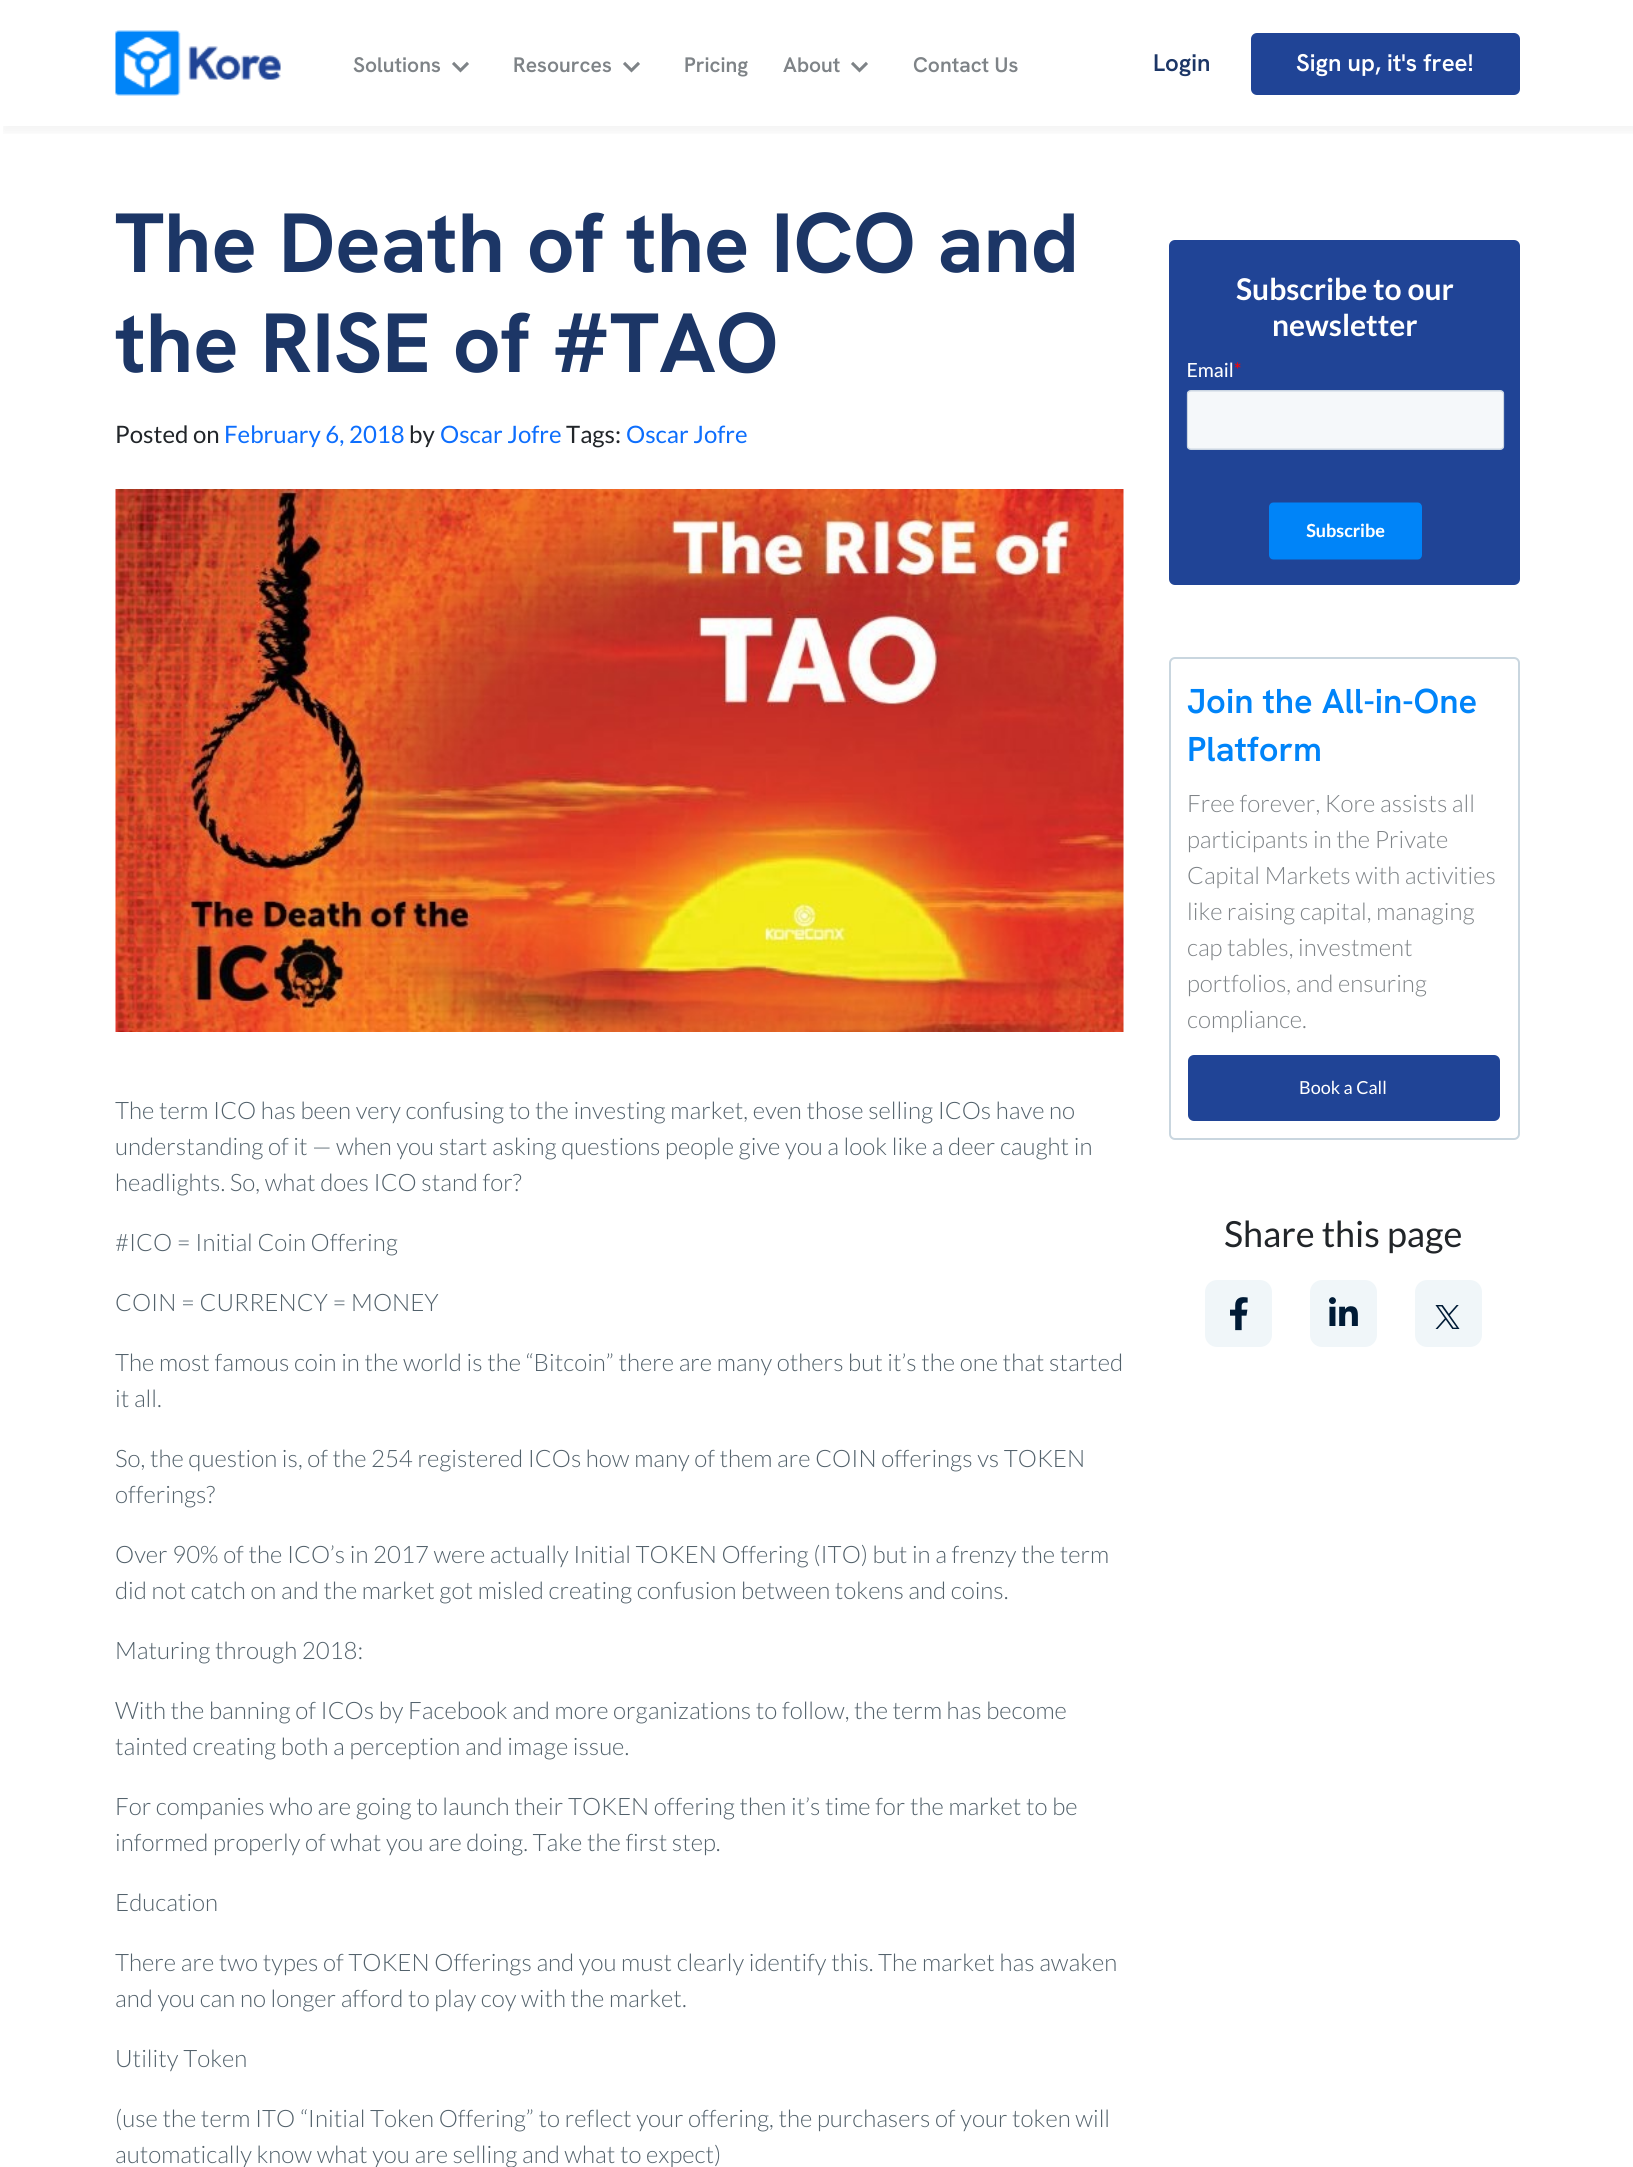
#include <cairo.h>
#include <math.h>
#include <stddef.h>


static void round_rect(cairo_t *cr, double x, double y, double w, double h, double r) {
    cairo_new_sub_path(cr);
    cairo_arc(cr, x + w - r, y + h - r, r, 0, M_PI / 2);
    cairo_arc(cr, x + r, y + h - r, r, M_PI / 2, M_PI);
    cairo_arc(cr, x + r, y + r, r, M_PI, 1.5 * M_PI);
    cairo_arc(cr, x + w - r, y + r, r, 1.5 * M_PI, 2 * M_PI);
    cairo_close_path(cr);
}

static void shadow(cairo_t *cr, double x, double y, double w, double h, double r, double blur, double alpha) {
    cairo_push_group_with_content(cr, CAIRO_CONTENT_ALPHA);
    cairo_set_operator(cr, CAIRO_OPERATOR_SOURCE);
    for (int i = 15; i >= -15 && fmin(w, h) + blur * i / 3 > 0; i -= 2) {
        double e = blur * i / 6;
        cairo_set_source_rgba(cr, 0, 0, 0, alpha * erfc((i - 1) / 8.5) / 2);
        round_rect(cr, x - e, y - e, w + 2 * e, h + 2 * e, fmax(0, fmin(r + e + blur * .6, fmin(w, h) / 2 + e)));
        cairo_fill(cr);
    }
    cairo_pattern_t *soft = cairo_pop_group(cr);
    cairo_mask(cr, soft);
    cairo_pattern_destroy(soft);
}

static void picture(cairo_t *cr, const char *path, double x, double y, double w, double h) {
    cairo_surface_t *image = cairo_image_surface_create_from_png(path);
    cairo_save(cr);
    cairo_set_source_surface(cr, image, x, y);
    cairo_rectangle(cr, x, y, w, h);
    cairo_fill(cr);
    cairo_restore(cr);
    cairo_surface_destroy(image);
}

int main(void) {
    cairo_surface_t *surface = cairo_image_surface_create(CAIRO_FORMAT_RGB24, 1633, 2167);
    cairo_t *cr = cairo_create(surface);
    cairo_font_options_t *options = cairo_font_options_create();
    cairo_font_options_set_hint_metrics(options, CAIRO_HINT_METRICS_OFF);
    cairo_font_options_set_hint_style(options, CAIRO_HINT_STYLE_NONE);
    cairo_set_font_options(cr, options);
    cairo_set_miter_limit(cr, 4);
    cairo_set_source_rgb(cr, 1, 1, 1);
    cairo_paint(cr);
    cairo_save(cr);
    cairo_rectangle(cr, 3, 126, 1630, 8);
    cairo_clip(cr);
    cairo_set_source_rgb(cr, 0, 0, 0);
    shadow(cr, 3, 6, 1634, 126, 0, 6, 0.05);
    cairo_restore(cr);
    picture(cr, "img1.png", 115, 30, 166, 66);
    cairo_select_font_face(cr, "Hanken Grotesk SemiBold", CAIRO_FONT_SLANT_NORMAL, CAIRO_FONT_WEIGHT_NORMAL);
    cairo_set_font_size(cr, 21);
    cairo_set_source_rgb(cr, 0.494, 0.514, 0.529);
    cairo_move_to(cr, 353, 72);
    cairo_show_text(cr, "Solutions");
    picture(cr, "img2.png", 452, 61, 17, 12);
    cairo_move_to(cr, 513, 72);
    cairo_show_text(cr, "Resources");
    picture(cr, "img3.png", 623, 61, 17, 12);
    cairo_move_to(cr, 684, 72);
    cairo_show_text(cr, "Pricing");
    cairo_move_to(cr, 783, 72);
    cairo_show_text(cr, "About");
    picture(cr, "img2.png", 851, 61, 17, 12);
    cairo_move_to(cr, 913, 72);
    cairo_show_text(cr, "Contact Us");
    cairo_set_font_size(cr, 24);
    cairo_set_source_rgb(cr, 0.11, 0.212, 0.4);
    cairo_move_to(cr, 1153, 71);
    cairo_show_text(cr, "Login");
    cairo_set_source_rgb(cr, 0.125, 0.267, 0.588);
    round_rect(cr, 1251, 33, 269, 62, 6);
    cairo_fill(cr);
    cairo_set_source_rgb(cr, 1, 1, 1);
    cairo_move_to(cr, 1296, 71);
    cairo_show_text(cr, "Sign up, it's free!");
    cairo_select_font_face(cr, "Hanken Grotesk", CAIRO_FONT_SLANT_NORMAL, CAIRO_FONT_WEIGHT_BOLD);
    cairo_set_font_size(cr, 84);
    cairo_set_source_rgb(cr, 0.11, 0.212, 0.4);
    cairo_move_to(cr, 115, 272);
    cairo_show_text(cr, "The Death of the ICO and");
    cairo_move_to(cr, 115, 372);
    cairo_show_text(cr, "the RISE of #TAO");
    cairo_select_font_face(cr, "Lato", CAIRO_FONT_SLANT_NORMAL, CAIRO_FONT_WEIGHT_NORMAL);
    cairo_set_font_size(cr, 24);
    cairo_set_source_rgb(cr, 0.129, 0.145, 0.161);
    cairo_move_to(cr, 115, 443);
    cairo_show_text(cr, "Posted on");
    cairo_set_source_rgb(cr, 0.051, 0.431, 0.992);
    cairo_move_to(cr, 224, 443);
    cairo_show_text(cr, "February 6, 2018");
    cairo_set_source_rgb(cr, 0.129, 0.145, 0.161);
    cairo_move_to(cr, 409, 443);
    cairo_show_text(cr, "by");
    cairo_set_source_rgb(cr, 0.051, 0.431, 0.992);
    cairo_move_to(cr, 440, 443);
    cairo_show_text(cr, "Oscar Jofre");
    cairo_set_source_rgb(cr, 0.129, 0.145, 0.161);
    cairo_move_to(cr, 566, 443);
    cairo_show_text(cr, "Tags:");
    cairo_set_source_rgb(cr, 0.051, 0.431, 0.992);
    cairo_move_to(cr, 626, 443);
    cairo_show_text(cr, "Oscar Jofre");
    picture(cr, "img4.png", 115, 489, 1009, 543);
    cairo_select_font_face(cr, "Lato Light", CAIRO_FONT_SLANT_NORMAL, CAIRO_FONT_WEIGHT_NORMAL);
    cairo_set_source_rgb(cr, 0.322, 0.38, 0.42);
    cairo_move_to(cr, 115, 1119);
    cairo_show_text(cr, "The term ICO has been very confusing to the investing market, even those selling ICOs have no");
    cairo_move_to(cr, 115, 1155);
    cairo_show_text(cr, "understanding of it — when you start asking questions people give you a look like a deer caught in");
    cairo_move_to(cr, 115, 1191);
    cairo_show_text(cr, "headlights. So, what does ICO stand for?");
    cairo_move_to(cr, 115, 1251);
    cairo_show_text(cr, "#ICO = Initial Coin Offering");
    cairo_move_to(cr, 115, 1311);
    cairo_show_text(cr, "COIN = CURRENCY = MONEY");
    cairo_move_to(cr, 115, 1371);
    cairo_show_text(cr, "The most famous coin in the world is the “Bitcoin” there are many others but it’s the one that started");
    cairo_move_to(cr, 115, 1407);
    cairo_show_text(cr, "it all.");
    cairo_move_to(cr, 115, 1467);
    cairo_show_text(cr, "So, the question is, of the 254 registered ICOs how many of them are COIN offerings vs TOKEN");
    cairo_move_to(cr, 115, 1503);
    cairo_show_text(cr, "offerings?");
    cairo_move_to(cr, 115, 1563);
    cairo_show_text(cr, "Over 90% of the ICO’s in 2017 were actually Initial TOKEN Offering (ITO) but in a frenzy the term");
    cairo_move_to(cr, 115, 1599);
    cairo_show_text(cr, "did not catch on and the market got misled creating confusion between tokens and coins.");
    cairo_move_to(cr, 115, 1659);
    cairo_show_text(cr, "Maturing through 2018:");
    cairo_move_to(cr, 115, 1719);
    cairo_show_text(cr, "With the banning of ICOs by Facebook and more organizations to follow, the term has become");
    cairo_move_to(cr, 115, 1755);
    cairo_show_text(cr, "tainted creating both a perception and image issue.");
    cairo_move_to(cr, 115, 1815);
    cairo_show_text(cr, "For companies who are going to launch their TOKEN offering then it’s time for the market to be");
    cairo_move_to(cr, 115, 1851);
    cairo_show_text(cr, "informed properly of what you are doing. Take the first step.");
    cairo_move_to(cr, 115, 1911);
    cairo_show_text(cr, "Education");
    cairo_move_to(cr, 115, 1971);
    cairo_show_text(cr, "There are two types of TOKEN Offerings and you must clearly identify this. The market has awaken");
    cairo_move_to(cr, 115, 2007);
    cairo_show_text(cr, "and you can no longer afford to play coy with the market.");
    cairo_move_to(cr, 115, 2067);
    cairo_show_text(cr, "Utility Token");
    cairo_move_to(cr, 115, 2127);
    cairo_show_text(cr, "(use the term ITO “Initial Token Offering” to reflect your offering, the purchasers of your token will");
    cairo_move_to(cr, 115, 2163);
    cairo_show_text(cr, "automatically know what you are selling and what to expect)");
    cairo_set_source_rgb(cr, 0.125, 0.267, 0.588);
    round_rect(cr, 1169, 240, 351, 345, 6);
    cairo_fill(cr);
    cairo_select_font_face(cr, "Lato", CAIRO_FONT_SLANT_NORMAL, CAIRO_FONT_WEIGHT_BOLD);
    cairo_set_font_size(cr, 30);
    cairo_set_source_rgb(cr, 1, 1, 1);
    cairo_move_to(cr, 1236, 300);
    cairo_show_text(cr, "Subscribe to our");
    cairo_move_to(cr, 1272, 336);
    cairo_show_text(cr, "newsletter");
    picture(cr, "img5.png", 1186, 362, 319, 198);
    round_rect(cr, 1170, 658, 349, 481, 5);
    cairo_set_source_rgb(cr, 0.788, 0.839, 0.875);
    cairo_stroke(cr);
    cairo_select_font_face(cr, "Hanken Grotesk SemiBold", CAIRO_FONT_SLANT_NORMAL, CAIRO_FONT_WEIGHT_NORMAL);
    cairo_set_font_size(cr, 34.5);
    cairo_set_source_rgb(cr, 0, 0.518, 0.973);
    cairo_move_to(cr, 1187, 713);
    cairo_show_text(cr, "Join the All-in-One");
    cairo_move_to(cr, 1187, 761);
    cairo_show_text(cr, "Platform");
    cairo_select_font_face(cr, "Lato Light", CAIRO_FONT_SLANT_NORMAL, CAIRO_FONT_WEIGHT_NORMAL);
    cairo_set_font_size(cr, 24);
    cairo_set_source_rgb(cr, 0.494, 0.514, 0.529);
    cairo_move_to(cr, 1187, 812);
    cairo_show_text(cr, "Free forever, Kore assists all");
    cairo_move_to(cr, 1187, 848);
    cairo_show_text(cr, "participants in the Private");
    cairo_move_to(cr, 1187, 884);
    cairo_show_text(cr, "Capital Markets with activities");
    cairo_move_to(cr, 1187, 920);
    cairo_show_text(cr, "like raising capital, managing");
    cairo_move_to(cr, 1187, 956);
    cairo_show_text(cr, "cap tables, investment");
    cairo_move_to(cr, 1187, 992);
    cairo_show_text(cr, "portfolios, and ensuring");
    cairo_move_to(cr, 1187, 1028);
    cairo_show_text(cr, "compliance.");
    cairo_set_source_rgb(cr, 0.125, 0.267, 0.588);
    round_rect(cr, 1188, 1055, 312, 66, 6);
    cairo_fill(cr);
    cairo_select_font_face(cr, "Lato", CAIRO_FONT_SLANT_NORMAL, CAIRO_FONT_WEIGHT_NORMAL);
    cairo_set_font_size(cr, 18);
    cairo_set_source_rgb(cr, 1, 1, 1);
    cairo_move_to(cr, 1299, 1094);
    cairo_show_text(cr, "Book a Call");
    cairo_set_font_size(cr, 36);
    cairo_set_source_rgb(cr, 0.129, 0.145, 0.161);
    cairo_move_to(cr, 1224, 1247);
    cairo_show_text(cr, "Share this page");
    cairo_set_source_rgb(cr, 0.941, 0.961, 0.976);
    round_rect(cr, 1205, 1280, 67, 67, 12);
    cairo_fill(cr);
    picture(cr, "img6.png", 1230, 1297, 18, 34);
    round_rect(cr, 1310, 1280, 67, 67, 12);
    cairo_fill(cr);
    picture(cr, "img7.png", 1329, 1297, 29, 29);
    round_rect(cr, 1415, 1280, 67, 67, 12);
    cairo_fill(cr);
    picture(cr, "img8.png", 1435, 1305, 25, 24);
    cairo_surface_write_to_png(surface, "page.png");
    cairo_font_options_destroy(options);
    cairo_destroy(cr);
    cairo_surface_destroy(surface);
    return 0;
}
